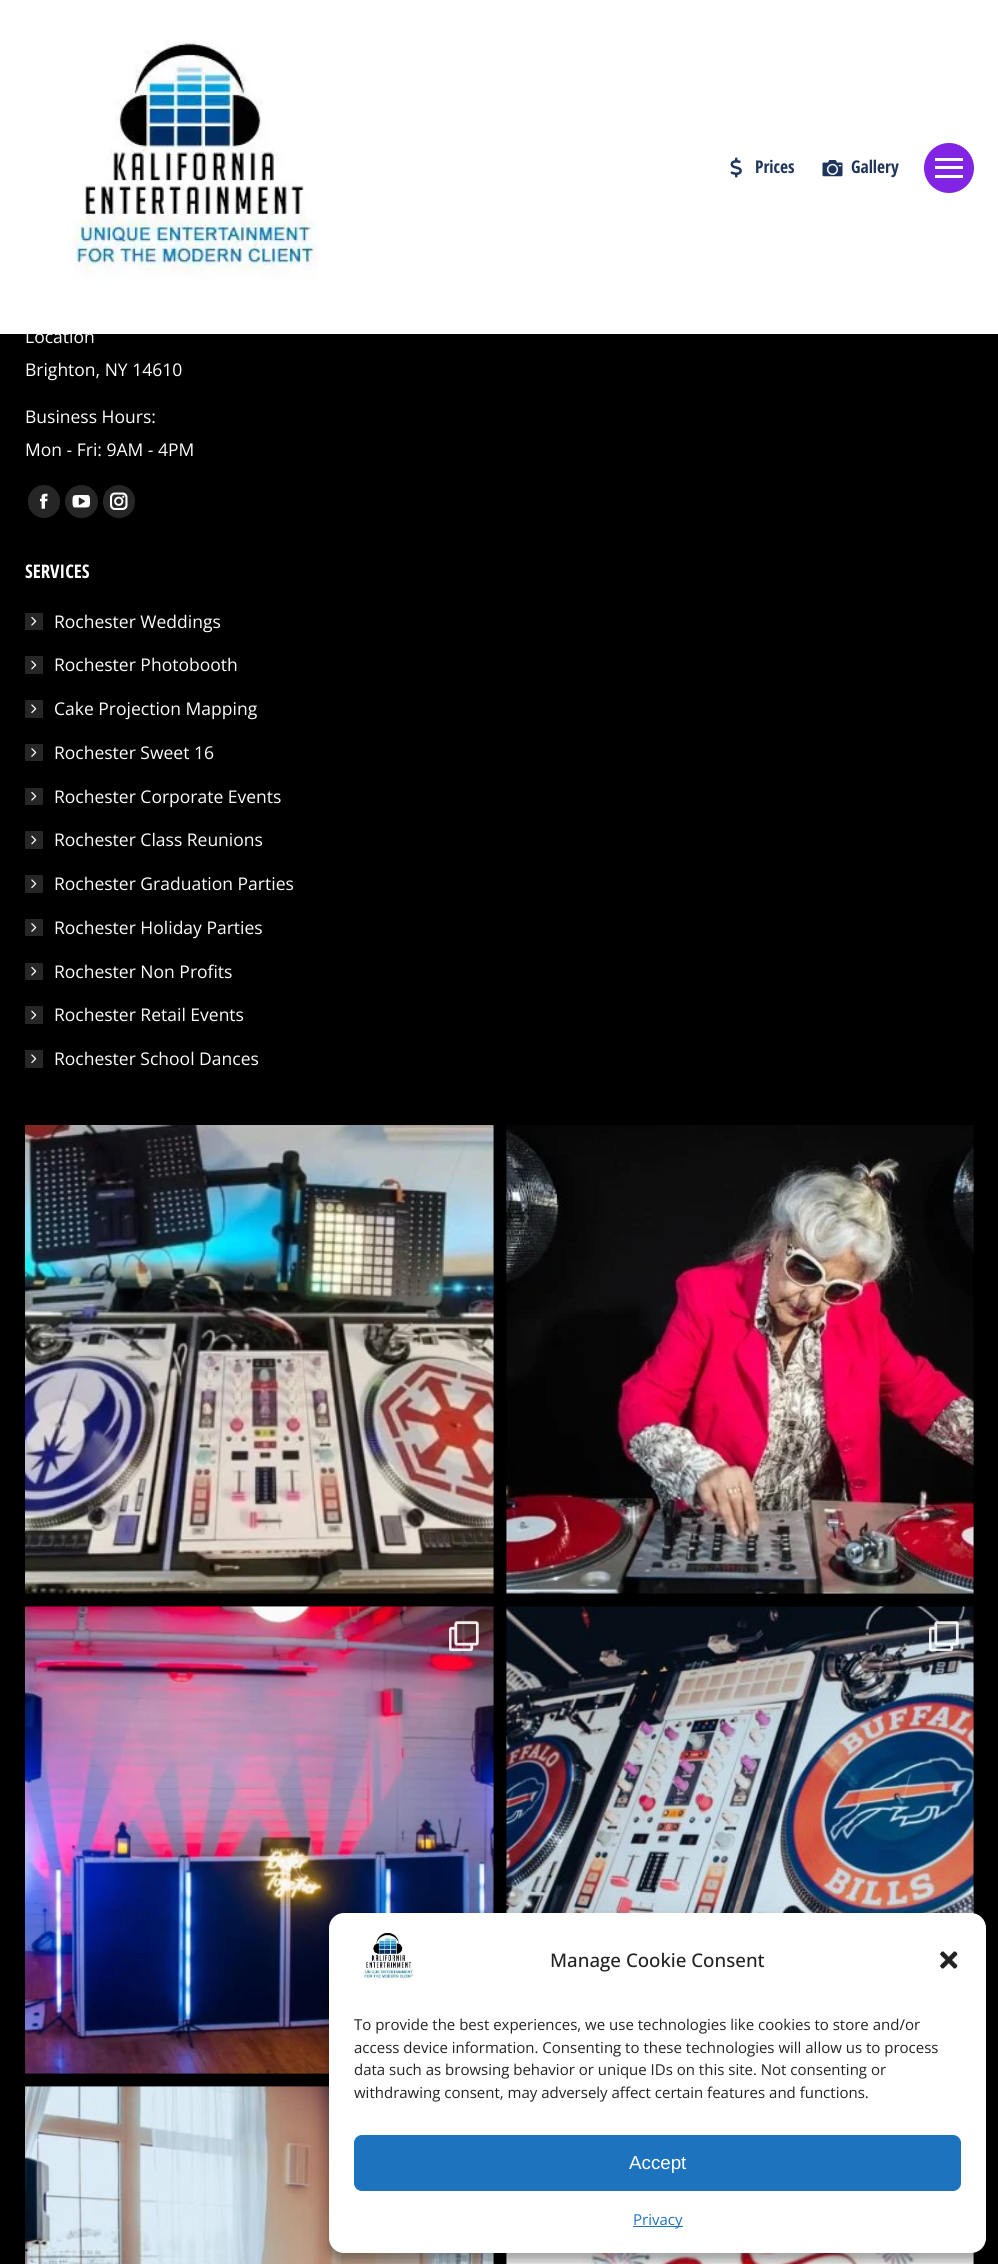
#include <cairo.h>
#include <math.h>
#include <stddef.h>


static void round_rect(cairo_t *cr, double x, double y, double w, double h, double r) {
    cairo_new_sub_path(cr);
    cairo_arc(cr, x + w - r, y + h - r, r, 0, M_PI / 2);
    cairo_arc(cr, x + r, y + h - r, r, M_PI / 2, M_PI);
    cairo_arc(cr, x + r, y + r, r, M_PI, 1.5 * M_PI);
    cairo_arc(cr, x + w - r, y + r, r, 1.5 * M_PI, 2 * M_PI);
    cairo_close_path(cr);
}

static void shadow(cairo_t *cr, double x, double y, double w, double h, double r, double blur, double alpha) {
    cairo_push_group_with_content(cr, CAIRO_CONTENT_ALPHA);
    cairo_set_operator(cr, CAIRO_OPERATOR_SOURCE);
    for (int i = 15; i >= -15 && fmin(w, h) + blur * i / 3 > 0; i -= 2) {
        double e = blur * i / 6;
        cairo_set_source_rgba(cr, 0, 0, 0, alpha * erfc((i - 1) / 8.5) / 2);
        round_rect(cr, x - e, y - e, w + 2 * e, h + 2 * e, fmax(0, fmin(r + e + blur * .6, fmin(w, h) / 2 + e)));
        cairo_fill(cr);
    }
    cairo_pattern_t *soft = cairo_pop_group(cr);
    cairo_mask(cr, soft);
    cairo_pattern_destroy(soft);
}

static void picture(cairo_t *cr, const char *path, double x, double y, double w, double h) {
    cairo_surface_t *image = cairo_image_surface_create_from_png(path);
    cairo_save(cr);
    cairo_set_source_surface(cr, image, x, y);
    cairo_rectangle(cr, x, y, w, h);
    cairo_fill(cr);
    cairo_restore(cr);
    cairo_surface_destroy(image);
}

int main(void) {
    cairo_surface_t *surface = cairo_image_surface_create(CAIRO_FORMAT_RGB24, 998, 2264);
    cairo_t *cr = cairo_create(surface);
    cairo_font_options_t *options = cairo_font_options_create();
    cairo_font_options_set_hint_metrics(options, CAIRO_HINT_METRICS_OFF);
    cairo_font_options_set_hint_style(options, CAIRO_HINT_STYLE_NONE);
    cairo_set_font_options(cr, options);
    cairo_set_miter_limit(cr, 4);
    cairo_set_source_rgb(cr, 0, 0, 0);
    cairo_paint(cr);
    shadow(cr, -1, -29, 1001, 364, 0, 9.5, 0.07);
    cairo_set_source_rgb(cr, 1, 1, 1);
    cairo_rectangle(cr, 0, 0, 998, 334);
    cairo_fill(cr);
    picture(cr, "img1.png", 68, 40, 250, 240);
    picture(cr, "img2.png", 730, 157, 12, 21);
    cairo_select_font_face(cr, "Open Sans Condensed", CAIRO_FONT_SLANT_NORMAL, CAIRO_FONT_WEIGHT_BOLD);
    cairo_set_font_size(cr, 17.5);
    cairo_set_source_rgb(cr, 0.122, 0.212, 0.361);
    cairo_move_to(cr, 755, 173);
    cairo_show_text(cr, "Prices");
    picture(cr, "img3.png", 822, 160, 21, 17);
    cairo_move_to(cr, 851, 173);
    cairo_show_text(cr, "Gallery");
    cairo_set_source_rgb(cr, 0.51, 0.141, 0.89);
    cairo_new_path(cr);
    cairo_arc(cr, 949, 168, 25, 0, 2 * M_PI);
    cairo_fill(cr);
    cairo_set_source_rgb(cr, 1, 1, 1);
    cairo_rectangle(cr, 935, 158, 28, 3);
    cairo_fill(cr);
    cairo_rectangle(cr, 935, 166, 28, 3);
    cairo_fill(cr);
    cairo_rectangle(cr, 935, 175, 28, 3);
    cairo_fill(cr);
    cairo_select_font_face(cr, "Open Sans", CAIRO_FONT_SLANT_NORMAL, CAIRO_FONT_WEIGHT_NORMAL);
    cairo_move_to(cr, 25, 343);
    cairo_show_text(cr, "Location");
    cairo_move_to(cr, 25, 376);
    cairo_show_text(cr, "Brighton, NY 14610");
    cairo_move_to(cr, 25, 423);
    cairo_show_text(cr, "Business Hours:");
    cairo_move_to(cr, 25, 456);
    cairo_show_text(cr, "Mon - Fri: 9AM - 4PM");
    cairo_set_source_rgb(cr, 0.149, 0.149, 0.149);
    round_rect(cr, 28, 485, 32, 33, 16);
    cairo_fill(cr);
    picture(cr, "img4.png", 40, 493, 8, 16);
    cairo_arc(cr, 81.5, 501.5, 16.5, 0, 2 * M_PI);
    cairo_fill(cr);
    picture(cr, "img5.png", 72, 495, 18, 13);
    round_rect(cr, 103, 485, 32, 33, 16);
    cairo_fill(cr);
    picture(cr, "img6.png", 110, 492, 18, 18);
    cairo_select_font_face(cr, "Open Sans Condensed", CAIRO_FONT_SLANT_NORMAL, CAIRO_FONT_WEIGHT_BOLD);
    cairo_set_font_size(cr, 18.75);
    cairo_set_source_rgb(cr, 1, 1, 1);
    cairo_move_to(cr, 25, 578);
    cairo_show_text(cr, "SERVICES");
    cairo_set_source_rgb(cr, 0.149, 0.149, 0.149);
    cairo_rectangle(cr, 25, 613, 18, 17);
    cairo_fill(cr);
    cairo_select_font_face(cr, "Open Sans", CAIRO_FONT_SLANT_NORMAL, CAIRO_FONT_WEIGHT_NORMAL);
    cairo_set_font_size(cr, 17.5);
    cairo_set_source_rgb(cr, 1, 1, 1);
    cairo_move_to(cr, 54, 628);
    cairo_show_text(cr, "Rochester Weddings");
    picture(cr, "img7.png", 31, 616, 6, 10);
    cairo_set_source_rgb(cr, 0.149, 0.149, 0.149);
    cairo_rectangle(cr, 25, 656, 18, 18);
    cairo_fill(cr);
    cairo_set_source_rgb(cr, 1, 1, 1);
    cairo_move_to(cr, 54, 671);
    cairo_show_text(cr, "Rochester Photobooth");
    picture(cr, "img8.png", 31, 660, 6, 10);
    cairo_set_source_rgb(cr, 0.149, 0.149, 0.149);
    cairo_rectangle(cr, 25, 700, 18, 18);
    cairo_fill(cr);
    cairo_set_source_rgb(cr, 1, 1, 1);
    cairo_move_to(cr, 54, 715);
    cairo_show_text(cr, "Cake Projection Mapping");
    picture(cr, "img9.png", 31, 704, 6, 10);
    cairo_set_source_rgb(cr, 0.149, 0.149, 0.149);
    cairo_rectangle(cr, 25, 744, 18, 17);
    cairo_fill(cr);
    cairo_set_source_rgb(cr, 1, 1, 1);
    cairo_move_to(cr, 54, 759);
    cairo_show_text(cr, "Rochester Sweet 16");
    picture(cr, "img10.png", 31, 748, 6, 9);
    cairo_set_source_rgb(cr, 0.149, 0.149, 0.149);
    cairo_rectangle(cr, 25, 788, 18, 17);
    cairo_fill(cr);
    cairo_set_source_rgb(cr, 1, 1, 1);
    cairo_move_to(cr, 54, 803);
    cairo_show_text(cr, "Rochester Corporate Events");
    picture(cr, "img7.png", 31, 791, 6, 10);
    cairo_set_source_rgb(cr, 0.149, 0.149, 0.149);
    cairo_rectangle(cr, 25, 831, 18, 18);
    cairo_fill(cr);
    cairo_set_source_rgb(cr, 1, 1, 1);
    cairo_move_to(cr, 54, 846);
    cairo_show_text(cr, "Rochester Class Reunions");
    picture(cr, "img8.png", 31, 835, 6, 10);
    cairo_set_source_rgb(cr, 0.149, 0.149, 0.149);
    cairo_rectangle(cr, 25, 875, 18, 18);
    cairo_fill(cr);
    cairo_set_source_rgb(cr, 1, 1, 1);
    cairo_move_to(cr, 54, 890);
    cairo_show_text(cr, "Rochester Graduation Parties");
    picture(cr, "img9.png", 31, 879, 6, 10);
    cairo_set_source_rgb(cr, 0.149, 0.149, 0.149);
    cairo_rectangle(cr, 25, 919, 18, 17);
    cairo_fill(cr);
    cairo_set_source_rgb(cr, 1, 1, 1);
    cairo_move_to(cr, 54, 934);
    cairo_show_text(cr, "Rochester Holiday Parties");
    picture(cr, "img10.png", 31, 923, 6, 9);
    cairo_set_source_rgb(cr, 0.149, 0.149, 0.149);
    cairo_rectangle(cr, 25, 963, 18, 17);
    cairo_fill(cr);
    cairo_set_source_rgb(cr, 1, 1, 1);
    cairo_move_to(cr, 54, 978);
    cairo_show_text(cr, "Rochester Non Profits");
    picture(cr, "img7.png", 31, 966, 6, 10);
    cairo_set_source_rgb(cr, 0.149, 0.149, 0.149);
    cairo_rectangle(cr, 25, 1006, 18, 18);
    cairo_fill(cr);
    cairo_set_source_rgb(cr, 1, 1, 1);
    cairo_move_to(cr, 54, 1021);
    cairo_show_text(cr, "Rochester Retail Events");
    picture(cr, "img8.png", 31, 1010, 6, 10);
    cairo_set_source_rgb(cr, 0.149, 0.149, 0.149);
    cairo_rectangle(cr, 25, 1050, 18, 18);
    cairo_fill(cr);
    cairo_set_source_rgb(cr, 1, 1, 1);
    cairo_move_to(cr, 54, 1065);
    cairo_show_text(cr, "Rochester School Dances");
    picture(cr, "img9.png", 31, 1054, 6, 10);
    picture(cr, "img11.png", 25, 1125, 469, 469);
    picture(cr, "img12.png", 506, 1125, 468, 469);
    picture(cr, "img13.png", 25, 1606, 469, 468);
    picture(cr, "img14.png", 449, 1621, 30, 30);
    picture(cr, "img15.png", 506, 1606, 468, 308);
    picture(cr, "img16.png", 929, 1621, 30, 30);
    picture(cr, "img17.png", 25, 2086, 469, 178);
    picture(cr, "img18.png", 506, 2252, 468, 12);
    cairo_set_source_rgba(cr, 0, 0, 0, 0.2);
    cairo_rectangle(cr, 971, 2252, 3, 1);
    cairo_fill(cr);
    cairo_set_source_rgb(cr, 0, 0, 0);
    shadow(cr, 329, 1920, 657, 340, 15, 4, 0.23);
    shadow(cr, 329, 1925, 657, 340, 15, 12.5, 0.19);
    cairo_set_source_rgb(cr, 1, 1, 1);
    round_rect(cr, 329, 1913, 657, 340, 15);
    cairo_fill(cr);
    picture(cr, "img19.png", 362, 1933, 53, 48);
    cairo_select_font_face(cr, "Open Sans Medium", CAIRO_FONT_SLANT_NORMAL, CAIRO_FONT_WEIGHT_NORMAL);
    cairo_set_font_size(cr, 18.75);
    cairo_set_source_rgb(cr, 0.133, 0.133, 0.133);
    cairo_move_to(cr, 550, 1967);
    cairo_show_text(cr, "Manage Cookie Consent");
    picture(cr, "img20.png", 940, 1951, 18, 18);
    cairo_select_font_face(cr, "Open Sans", CAIRO_FONT_SLANT_NORMAL, CAIRO_FONT_WEIGHT_NORMAL);
    cairo_set_font_size(cr, 15);
    cairo_move_to(cr, 354, 2030);
    cairo_show_text(cr, "To provide the best experiences, we use technologies like cookies to store and/or");
    cairo_move_to(cr, 354, 2053);
    cairo_show_text(cr, "access device information. Consenting to these technologies will allow us to process");
    cairo_move_to(cr, 354, 2075);
    cairo_show_text(cr, "data such as browsing behavior or unique IDs on this site. Not consenting or");
    cairo_move_to(cr, 354, 2098);
    cairo_show_text(cr, "withdrawing consent, may adversely affect certain features and functions.");
    cairo_set_source_rgb(cr, 0.118, 0.451, 0.745);
    round_rect(cr, 354.5, 2135.5, 606, 55, 7.5);
    cairo_fill_preserve(cr);
    cairo_set_line_width(cr, 1);
    cairo_stroke(cr);
    cairo_select_font_face(cr, "Liberation Sans", CAIRO_FONT_SLANT_NORMAL, CAIRO_FONT_WEIGHT_NORMAL);
    cairo_set_font_size(cr, 18.75);
    cairo_set_source_rgb(cr, 1, 1, 1);
    cairo_move_to(cr, 629, 2169);
    cairo_show_text(cr, "Accept");
    cairo_set_source_rgb(cr, 0.118, 0.451, 0.745);
    cairo_rectangle(cr, 633, 2226, 50, 1);
    cairo_fill(cr);
    cairo_select_font_face(cr, "Open Sans", CAIRO_FONT_SLANT_NORMAL, CAIRO_FONT_WEIGHT_NORMAL);
    cairo_set_font_size(cr, 15);
    cairo_move_to(cr, 633, 2225);
    cairo_show_text(cr, "Privacy");
    cairo_surface_write_to_png(surface, "page.png");
    cairo_font_options_destroy(options);
    cairo_destroy(cr);
    cairo_surface_destroy(surface);
    return 0;
}
